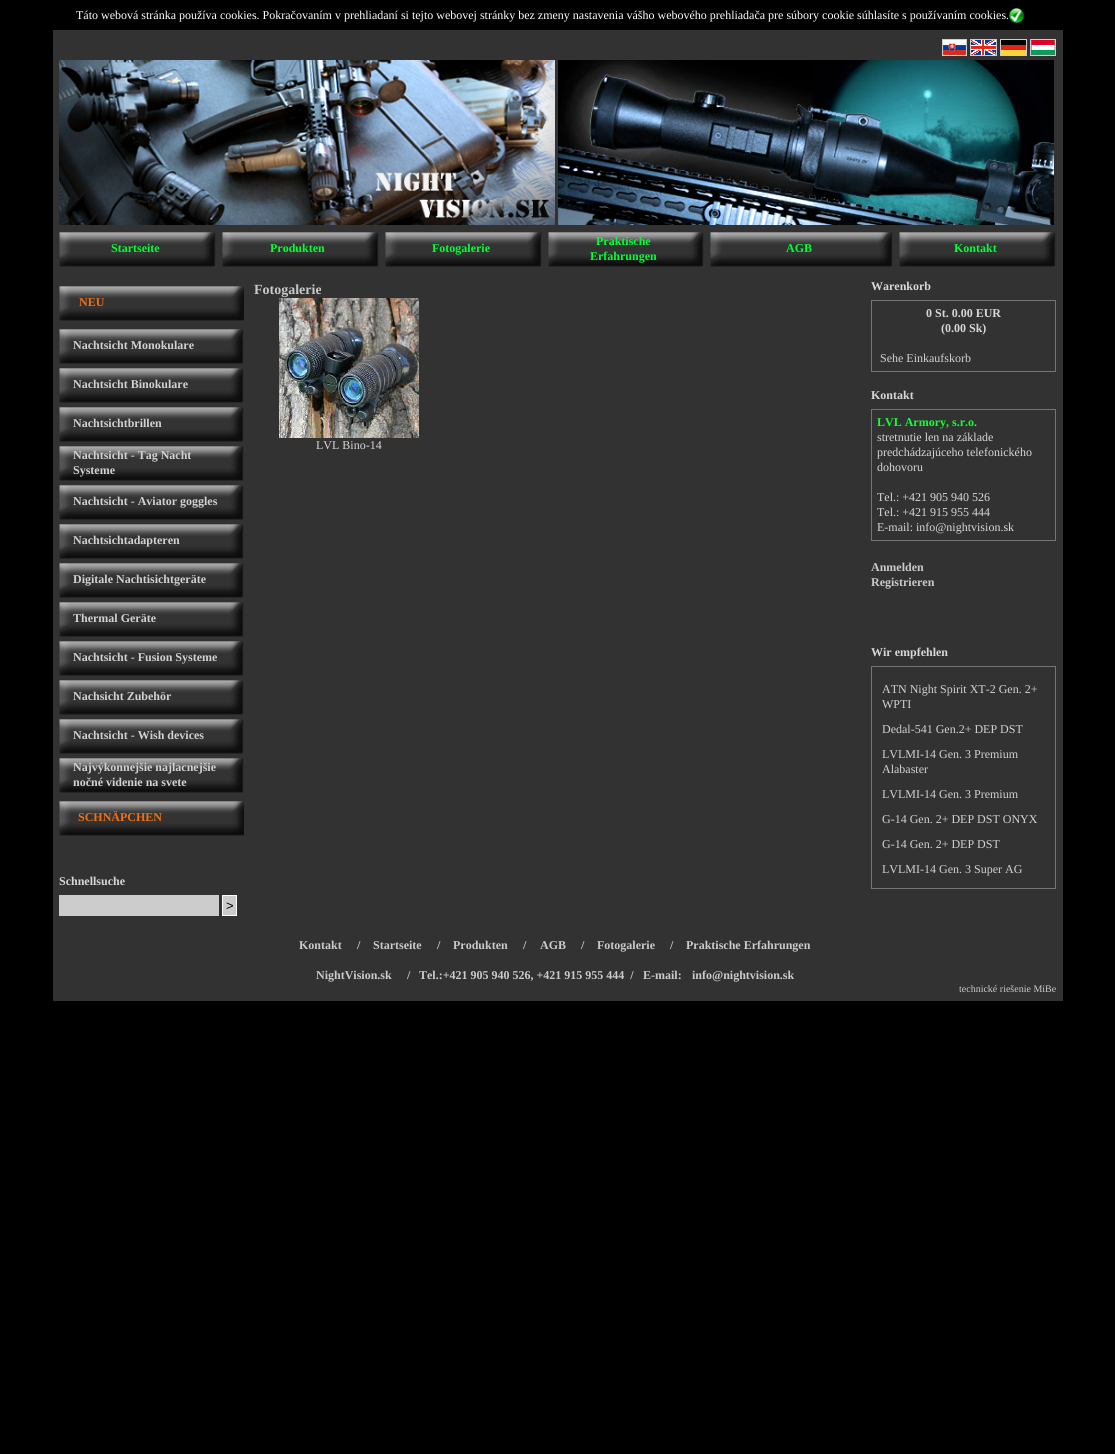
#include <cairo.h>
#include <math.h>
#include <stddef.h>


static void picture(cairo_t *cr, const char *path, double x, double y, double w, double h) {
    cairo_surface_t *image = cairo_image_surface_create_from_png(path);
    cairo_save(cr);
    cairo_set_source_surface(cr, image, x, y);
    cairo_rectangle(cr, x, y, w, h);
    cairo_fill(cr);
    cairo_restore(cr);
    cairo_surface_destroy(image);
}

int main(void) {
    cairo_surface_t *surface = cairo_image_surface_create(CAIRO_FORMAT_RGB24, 1115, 1454);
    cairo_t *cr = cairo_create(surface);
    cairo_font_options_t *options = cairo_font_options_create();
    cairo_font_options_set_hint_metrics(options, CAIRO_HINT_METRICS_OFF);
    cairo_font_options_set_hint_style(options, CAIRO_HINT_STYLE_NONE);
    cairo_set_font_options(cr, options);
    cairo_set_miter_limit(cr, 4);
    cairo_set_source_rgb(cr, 0, 0, 0);
    cairo_paint(cr);
    cairo_select_font_face(cr, "Liberation Serif", CAIRO_FONT_SLANT_NORMAL, CAIRO_FONT_WEIGHT_NORMAL);
    cairo_set_font_size(cr, 12);
    cairo_set_source_rgb(cr, 1, 1, 1);
    cairo_move_to(cr, 76, 19);
    cairo_show_text(cr, "Táto webová stránka používa cookies. Pokračovaním v prehliadaní si tejto webovej stránky bez zmeny nastavenia vášho webového prehliadača pre súbory cookie súhlasíte s používaním cookies.");
    picture(cr, "img1.png", 1009, 8, 15, 15);
    cairo_set_source_rgb(cr, 0.196, 0.196, 0.196);
    cairo_rectangle(cr, 53, 30, 1010, 971);
    cairo_fill(cr);
    cairo_rectangle(cr, 942.5, 39.5, 24, 16);
    cairo_set_source_rgb(cr, 0.8, 0.8, 0.8);
    cairo_set_line_width(cr, 1);
    cairo_stroke(cr);
    cairo_rectangle(cr, 970.5, 39.5, 26, 16);
    cairo_stroke(cr);
    cairo_rectangle(cr, 1000.5, 39.5, 26, 16);
    cairo_stroke(cr);
    cairo_rectangle(cr, 1030.5, 39.5, 25, 16);
    cairo_stroke(cr);
    picture(cr, "img2.png", 943, 40, 23, 15);
    picture(cr, "img3.png", 971, 40, 25, 15);
    picture(cr, "img4.png", 1001, 40, 25, 15);
    picture(cr, "img5.png", 1031, 40, 24, 15);
    picture(cr, "img6.png", 59, 60, 496, 165);
    picture(cr, "img7.png", 558, 60, 496, 165);
    picture(cr, "img8.png", 59, 232, 14, 35);
    picture(cr, "img9.png", 73, 232, 124, 35);
    cairo_select_font_face(cr, "Liberation Serif", CAIRO_FONT_SLANT_NORMAL, CAIRO_FONT_WEIGHT_BOLD);
    cairo_set_source_rgb(cr, 0.008, 1, 0.196);
    cairo_move_to(cr, 111, 252);
    cairo_show_text(cr, "Startseite");
    picture(cr, "img10.png", 197, 232, 19, 35);
    picture(cr, "img8.png", 222, 232, 14, 35);
    picture(cr, "img9.png", 236, 232, 124, 35);
    cairo_move_to(cr, 270, 252);
    cairo_show_text(cr, "Produkten");
    picture(cr, "img10.png", 360, 232, 19, 35);
    picture(cr, "img8.png", 385, 232, 14, 35);
    picture(cr, "img9.png", 399, 232, 124, 35);
    cairo_move_to(cr, 432, 252);
    cairo_show_text(cr, "Fotogalerie");
    picture(cr, "img10.png", 523, 232, 19, 35);
    picture(cr, "img11.png", 548, 232, 13, 35);
    picture(cr, "img9.png", 561, 232, 124, 35);
    cairo_move_to(cr, 596, 245);
    cairo_show_text(cr, "Praktische");
    cairo_move_to(cr, 590, 260);
    cairo_show_text(cr, "Erfahrungen");
    picture(cr, "img10.png", 685, 232, 19, 35);
    picture(cr, "img8.png", 710, 232, 14, 35);
    picture(cr, "img12.png", 724, 232, 150, 35);
    cairo_move_to(cr, 786, 252);
    cairo_show_text(cr, "AGB");
    picture(cr, "img10.png", 874, 232, 19, 35);
    picture(cr, "img8.png", 899, 232, 14, 35);
    picture(cr, "img9.png", 913, 232, 124, 35);
    cairo_move_to(cr, 954, 252);
    cairo_show_text(cr, "Kontakt");
    picture(cr, "img10.png", 1037, 232, 19, 35);
    picture(cr, "img13.png", 59, 286, 13, 35);
    picture(cr, "img14.png", 72, 286, 155, 35);
    cairo_set_source_rgb(cr, 0.941, 0.439, 0.082);
    cairo_move_to(cr, 79, 306);
    cairo_show_text(cr, "NEU");
    picture(cr, "img15.png", 227, 286, 17, 35);
    picture(cr, "img16.png", 59, 329, 14, 35);
    picture(cr, "img17.png", 73, 329, 152, 35);
    cairo_set_source_rgb(cr, 0.82, 0.82, 0.82);
    cairo_move_to(cr, 73, 349);
    cairo_show_text(cr, "Nachtsicht Monokulare");
    picture(cr, "img10.png", 225, 329, 19, 35);
    picture(cr, "img16.png", 59, 368, 14, 35);
    picture(cr, "img17.png", 73, 368, 152, 35);
    cairo_move_to(cr, 73, 388);
    cairo_show_text(cr, "Nachtsicht Binokulare");
    picture(cr, "img10.png", 225, 368, 19, 35);
    picture(cr, "img16.png", 59, 407, 14, 35);
    picture(cr, "img17.png", 73, 407, 152, 35);
    cairo_move_to(cr, 73, 427);
    cairo_show_text(cr, "Nachtsichtbrillen");
    picture(cr, "img10.png", 225, 407, 19, 35);
    picture(cr, "img16.png", 59, 446, 14, 35);
    picture(cr, "img17.png", 73, 446, 152, 35);
    cairo_move_to(cr, 73, 459);
    cairo_show_text(cr, "Nachtsicht - Tag Nacht");
    cairo_move_to(cr, 73, 474);
    cairo_show_text(cr, "Systeme");
    picture(cr, "img10.png", 225, 446, 19, 35);
    picture(cr, "img16.png", 59, 485, 14, 35);
    picture(cr, "img17.png", 73, 485, 152, 35);
    cairo_move_to(cr, 73, 505);
    cairo_show_text(cr, "Nachtsicht - Aviator goggles");
    picture(cr, "img10.png", 225, 485, 19, 35);
    picture(cr, "img16.png", 59, 524, 14, 35);
    picture(cr, "img17.png", 73, 524, 152, 35);
    cairo_move_to(cr, 73, 544);
    cairo_show_text(cr, "Nachtsichtadapteren");
    picture(cr, "img10.png", 225, 524, 19, 35);
    picture(cr, "img16.png", 59, 563, 14, 35);
    picture(cr, "img17.png", 73, 563, 152, 35);
    cairo_move_to(cr, 73, 583);
    cairo_show_text(cr, "Digitale Nachtisichtgeräte");
    picture(cr, "img10.png", 225, 563, 19, 35);
    picture(cr, "img16.png", 59, 602, 14, 35);
    picture(cr, "img17.png", 73, 602, 152, 35);
    cairo_move_to(cr, 73, 622);
    cairo_show_text(cr, "Thermal Geräte");
    picture(cr, "img10.png", 225, 602, 19, 35);
    picture(cr, "img16.png", 59, 641, 14, 35);
    picture(cr, "img17.png", 73, 641, 152, 35);
    cairo_move_to(cr, 73, 661);
    cairo_show_text(cr, "Nachtsicht - Fusion Systeme");
    picture(cr, "img10.png", 225, 641, 19, 35);
    picture(cr, "img16.png", 59, 680, 14, 35);
    picture(cr, "img17.png", 73, 680, 152, 35);
    cairo_move_to(cr, 73, 700);
    cairo_show_text(cr, "Nachsicht Zubehör");
    picture(cr, "img10.png", 225, 680, 19, 35);
    picture(cr, "img16.png", 59, 719, 14, 35);
    picture(cr, "img17.png", 73, 719, 152, 35);
    cairo_move_to(cr, 73, 739);
    cairo_show_text(cr, "Nachtsicht - Wish devices");
    picture(cr, "img10.png", 225, 719, 19, 35);
    picture(cr, "img16.png", 59, 758, 14, 35);
    picture(cr, "img17.png", 73, 758, 152, 35);
    cairo_move_to(cr, 73, 771);
    cairo_show_text(cr, "Najvýkonnejšie najlacnejšie");
    cairo_move_to(cr, 73, 786);
    cairo_show_text(cr, "nočné videnie na svete");
    picture(cr, "img10.png", 225, 758, 19, 35);
    picture(cr, "img18.png", 59, 801, 12, 35);
    picture(cr, "img19.png", 71, 801, 157, 35);
    cairo_set_source_rgb(cr, 0.941, 0.439, 0.082);
    cairo_move_to(cr, 78, 821);
    cairo_show_text(cr, "SCHNÄPCHEN");
    picture(cr, "img20.png", 228, 801, 16, 35);
    cairo_set_source_rgb(cr, 0.843, 0.843, 0.843);
    cairo_move_to(cr, 59, 885);
    cairo_show_text(cr, "Schnellsuche");
    cairo_set_source_rgb(cr, 0.8, 0.8, 0.8);
    cairo_rectangle(cr, 59, 895, 160, 21);
    cairo_fill(cr);
    cairo_rectangle(cr, 222.5, 895.5, 14, 20);
    cairo_fill_preserve(cr);
    cairo_set_source_rgb(cr, 1, 1, 1);
    cairo_stroke(cr);
    cairo_select_font_face(cr, "Liberation Sans", CAIRO_FONT_SLANT_NORMAL, CAIRO_FONT_WEIGHT_NORMAL);
    cairo_set_font_size(cr, 13);
    cairo_set_source_rgb(cr, 0, 0, 0);
    cairo_move_to(cr, 226, 910);
    cairo_show_text(cr, ">");
    cairo_select_font_face(cr, "Liberation Serif", CAIRO_FONT_SLANT_NORMAL, CAIRO_FONT_WEIGHT_BOLD);
    cairo_set_font_size(cr, 14);
    cairo_set_source_rgb(cr, 0.792, 0.792, 0.792);
    cairo_move_to(cr, 254, 294);
    cairo_show_text(cr, "Fotogalerie");
    picture(cr, "img21.png", 279, 298, 140, 140);
    cairo_select_font_face(cr, "Liberation Serif", CAIRO_FONT_SLANT_NORMAL, CAIRO_FONT_WEIGHT_NORMAL);
    cairo_set_font_size(cr, 12);
    cairo_set_source_rgb(cr, 0.843, 0.843, 0.843);
    cairo_move_to(cr, 316, 449);
    cairo_show_text(cr, "LVL Bino-14");
    cairo_select_font_face(cr, "Liberation Serif", CAIRO_FONT_SLANT_NORMAL, CAIRO_FONT_WEIGHT_BOLD);
    cairo_move_to(cr, 871, 290);
    cairo_show_text(cr, "Warenkorb");
    cairo_rectangle(cr, 871.5, 300.5, 184, 71);
    cairo_set_source_rgb(cr, 0.459, 0.459, 0.459);
    cairo_stroke(cr);
    cairo_set_source_rgb(cr, 0.843, 0.843, 0.843);
    cairo_move_to(cr, 926, 317);
    cairo_show_text(cr, "0 St. 0.00 EUR");
    cairo_move_to(cr, 941, 332);
    cairo_show_text(cr, "(0.00 Sk)");
    cairo_select_font_face(cr, "Liberation Serif", CAIRO_FONT_SLANT_NORMAL, CAIRO_FONT_WEIGHT_NORMAL);
    cairo_set_source_rgb(cr, 0.82, 0.82, 0.82);
    cairo_move_to(cr, 880, 362);
    cairo_show_text(cr, "Sehe Einkaufskorb");
    cairo_select_font_face(cr, "Liberation Serif", CAIRO_FONT_SLANT_NORMAL, CAIRO_FONT_WEIGHT_BOLD);
    cairo_set_source_rgb(cr, 0.843, 0.843, 0.843);
    cairo_move_to(cr, 871, 399);
    cairo_show_text(cr, "Kontakt");
    cairo_rectangle(cr, 871.5, 409.5, 184, 131);
    cairo_set_source_rgb(cr, 0.459, 0.459, 0.459);
    cairo_stroke(cr);
    cairo_set_source_rgb(cr, 0.082, 1, 0.196);
    cairo_move_to(cr, 877, 426);
    cairo_show_text(cr, "LVL Armory, s.r.o.");
    cairo_select_font_face(cr, "Liberation Serif", CAIRO_FONT_SLANT_NORMAL, CAIRO_FONT_WEIGHT_NORMAL);
    cairo_set_source_rgb(cr, 0.843, 0.843, 0.843);
    cairo_move_to(cr, 877, 441);
    cairo_show_text(cr, "stretnutie len na základe");
    cairo_move_to(cr, 877, 456);
    cairo_show_text(cr, "predchádzajúceho telefonického");
    cairo_move_to(cr, 877, 471);
    cairo_show_text(cr, "dohovoru");
    cairo_move_to(cr, 877, 501);
    cairo_show_text(cr, "Tel.: +421 905 940 526");
    cairo_move_to(cr, 877, 516);
    cairo_show_text(cr, "Tel.: +421 915 955 444");
    cairo_move_to(cr, 877, 531);
    cairo_show_text(cr, "E-mail: info@nightvision.sk");
    cairo_select_font_face(cr, "Liberation Serif", CAIRO_FONT_SLANT_NORMAL, CAIRO_FONT_WEIGHT_BOLD);
    cairo_set_source_rgb(cr, 0.792, 0.792, 0.792);
    cairo_move_to(cr, 871, 571);
    cairo_show_text(cr, "Anmelden");
    cairo_move_to(cr, 871, 586);
    cairo_show_text(cr, "Registrieren");
    cairo_set_source_rgb(cr, 0.843, 0.843, 0.843);
    cairo_move_to(cr, 871, 656);
    cairo_show_text(cr, "Wir empfehlen");
    cairo_rectangle(cr, 871.5, 666.5, 184, 222);
    cairo_set_source_rgb(cr, 0.459, 0.459, 0.459);
    cairo_stroke(cr);
    cairo_select_font_face(cr, "Liberation Serif", CAIRO_FONT_SLANT_NORMAL, CAIRO_FONT_WEIGHT_NORMAL);
    cairo_set_source_rgb(cr, 0.82, 0.82, 0.82);
    cairo_move_to(cr, 882, 693);
    cairo_show_text(cr, "ATN Night Spirit XT-2 Gen. 2+");
    cairo_move_to(cr, 882, 708);
    cairo_show_text(cr, "WPTI");
    cairo_move_to(cr, 882, 733);
    cairo_show_text(cr, "Dedal-541 Gen.2+ DEP DST");
    cairo_move_to(cr, 882, 758);
    cairo_show_text(cr, "LVLMI-14 Gen. 3 Premium");
    cairo_move_to(cr, 882, 773);
    cairo_show_text(cr, "Alabaster");
    cairo_move_to(cr, 882, 798);
    cairo_show_text(cr, "LVLMI-14 Gen. 3 Premium");
    cairo_move_to(cr, 882, 823);
    cairo_show_text(cr, "G-14 Gen. 2+ DEP DST ONYX");
    cairo_move_to(cr, 882, 848);
    cairo_show_text(cr, "G-14 Gen. 2+ DEP DST");
    cairo_move_to(cr, 882, 873);
    cairo_show_text(cr, "LVLMI-14 Gen. 3 Super AG");
    cairo_select_font_face(cr, "Liberation Serif", CAIRO_FONT_SLANT_NORMAL, CAIRO_FONT_WEIGHT_BOLD);
    cairo_set_source_rgb(cr, 0.792, 0.792, 0.792);
    cairo_move_to(cr, 299, 949);
    cairo_show_text(cr, "Kontakt");
    cairo_move_to(cr, 357, 949);
    cairo_show_text(cr, "/");
    cairo_move_to(cr, 373, 949);
    cairo_show_text(cr, "Startseite");
    cairo_move_to(cr, 437, 949);
    cairo_show_text(cr, "/");
    cairo_move_to(cr, 453, 949);
    cairo_show_text(cr, "Produkten");
    cairo_move_to(cr, 523, 949);
    cairo_show_text(cr, "/");
    cairo_move_to(cr, 540, 949);
    cairo_show_text(cr, "AGB");
    cairo_move_to(cr, 581, 949);
    cairo_show_text(cr, "/");
    cairo_move_to(cr, 597, 949);
    cairo_show_text(cr, "Fotogalerie");
    cairo_move_to(cr, 670, 949);
    cairo_show_text(cr, "/");
    cairo_move_to(cr, 686, 949);
    cairo_show_text(cr, "Praktische Erfahrungen");
    cairo_move_to(cr, 316, 979);
    cairo_show_text(cr, "NightVision.sk");
    cairo_move_to(cr, 407, 979);
    cairo_show_text(cr, "/");
    cairo_move_to(cr, 419, 979);
    cairo_show_text(cr, "Tel.:+421 905 940 526, +421 915 955 444  /");
    cairo_move_to(cr, 643, 979);
    cairo_show_text(cr, "E-mail:");
    cairo_move_to(cr, 692, 979);
    cairo_show_text(cr, "info@nightvision.sk");
    cairo_select_font_face(cr, "Liberation Serif", CAIRO_FONT_SLANT_NORMAL, CAIRO_FONT_WEIGHT_NORMAL);
    cairo_set_font_size(cr, 10);
    cairo_move_to(cr, 959, 992);
    cairo_show_text(cr, "technické riešenie MiBe");
    cairo_surface_write_to_png(surface, "page.png");
    cairo_font_options_destroy(options);
    cairo_destroy(cr);
    cairo_surface_destroy(surface);
    return 0;
}
